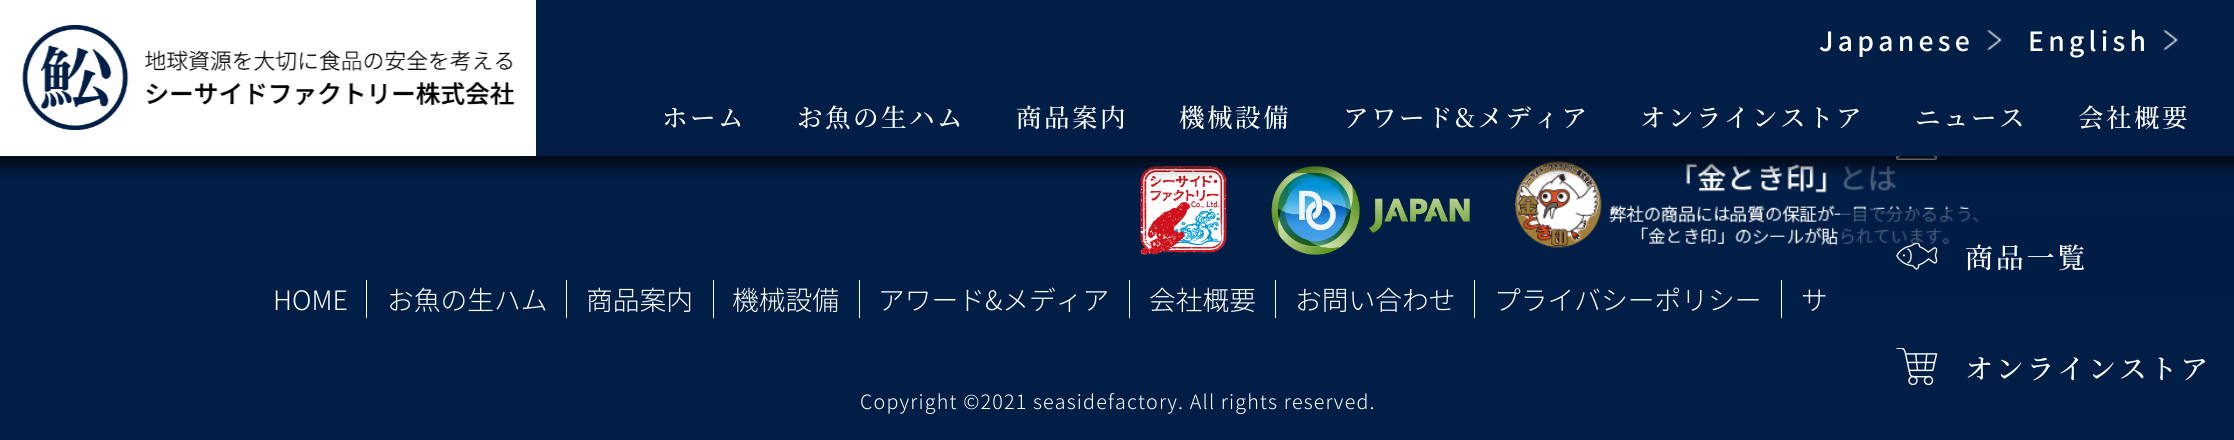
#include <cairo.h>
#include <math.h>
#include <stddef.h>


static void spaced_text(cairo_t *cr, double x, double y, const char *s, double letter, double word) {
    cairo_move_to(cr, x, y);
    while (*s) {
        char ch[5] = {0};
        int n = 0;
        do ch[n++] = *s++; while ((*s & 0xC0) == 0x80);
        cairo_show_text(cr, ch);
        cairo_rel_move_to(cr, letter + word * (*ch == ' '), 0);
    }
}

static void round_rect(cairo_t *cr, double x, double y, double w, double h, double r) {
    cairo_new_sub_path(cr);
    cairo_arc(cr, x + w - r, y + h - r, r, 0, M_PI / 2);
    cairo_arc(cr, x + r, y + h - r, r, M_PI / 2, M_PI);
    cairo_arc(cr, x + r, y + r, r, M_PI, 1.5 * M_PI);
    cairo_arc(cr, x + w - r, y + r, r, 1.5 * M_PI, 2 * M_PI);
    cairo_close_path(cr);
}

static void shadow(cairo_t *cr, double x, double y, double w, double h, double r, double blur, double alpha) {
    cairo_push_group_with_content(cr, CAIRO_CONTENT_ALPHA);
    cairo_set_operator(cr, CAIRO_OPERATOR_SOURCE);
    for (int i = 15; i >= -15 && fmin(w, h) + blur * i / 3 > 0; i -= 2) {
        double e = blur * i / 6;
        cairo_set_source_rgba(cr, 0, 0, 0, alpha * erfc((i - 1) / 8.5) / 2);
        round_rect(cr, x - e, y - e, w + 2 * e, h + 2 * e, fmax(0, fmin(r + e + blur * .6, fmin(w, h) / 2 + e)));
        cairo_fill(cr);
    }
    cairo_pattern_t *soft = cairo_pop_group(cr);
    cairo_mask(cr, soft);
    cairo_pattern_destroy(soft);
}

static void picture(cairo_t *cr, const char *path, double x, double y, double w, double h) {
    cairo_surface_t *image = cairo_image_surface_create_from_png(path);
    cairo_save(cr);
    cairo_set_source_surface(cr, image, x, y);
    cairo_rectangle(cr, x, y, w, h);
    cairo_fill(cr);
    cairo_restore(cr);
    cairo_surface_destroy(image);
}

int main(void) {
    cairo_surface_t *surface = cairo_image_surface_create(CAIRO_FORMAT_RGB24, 2234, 440);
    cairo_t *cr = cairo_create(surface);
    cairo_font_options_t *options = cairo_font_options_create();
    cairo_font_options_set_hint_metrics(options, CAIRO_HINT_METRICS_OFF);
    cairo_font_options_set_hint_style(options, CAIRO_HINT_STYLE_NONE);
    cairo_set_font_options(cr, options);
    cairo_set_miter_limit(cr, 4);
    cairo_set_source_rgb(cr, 0, 0.118, 0.275);
    cairo_paint(cr);
    picture(cr, "img4.png", 1140, 166, 87, 89);
    picture(cr, "img5.png", 1271, 166, 199, 89);
    picture(cr, "img6.png", 1515, 161, 463, 87);
    cairo_set_source_rgba(cr, 0, 0.118, 0.275, 0.72);
    cairo_new_path(cr);
    cairo_move_to(cr, 1844, 99);
    cairo_line_to(cr, 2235, 99);
    cairo_line_to(cr, 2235, 193);
    cairo_line_to(cr, 1844, 193);
    cairo_curve_to(cr, 1842, 193, 1840, 191, 1840, 189);
    cairo_line_to(cr, 1840, 103);
    cairo_curve_to(cr, 1840, 101, 1842, 99, 1844, 99);
    cairo_close_path(cr);
    cairo_fill(cr);
    cairo_new_path(cr);
    cairo_move_to(cr, 1911.5, 145.5);
    cairo_line_to(cr, 1897.5, 157.5);
    cairo_move_to(cr, 1936, 157.5);
    cairo_line_to(cr, 1922, 145.5);
    cairo_set_source_rgb(cr, 1, 1, 1);
    cairo_set_line_width(cr, 1.4);
    cairo_stroke(cr);
    round_rect(cr, 1896.75, 131.75, 39.5, 27.5, 1.25);
    cairo_set_line_width(cr, 1.5);
    cairo_stroke(cr);
    cairo_set_source_rgb(cr, 0, 0, 0);
    shadow(cr, -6, -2, 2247, 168, 0, 7, 0.73);
    cairo_set_source_rgb(cr, 1, 1, 1);
    cairo_rectangle(cr, 0, 0, 536, 156);
    cairo_fill(cr);
    picture(cr, "img1.png", 22, 25, 493, 105);
    cairo_set_source_rgb(cr, 0, 0.118, 0.275);
    cairo_rectangle(cr, 536, 0, 1698, 156);
    cairo_fill(cr);
    cairo_select_font_face(cr, "Noto Sans JP Medium", CAIRO_FONT_SLANT_NORMAL, CAIRO_FONT_WEIGHT_NORMAL);
    cairo_set_font_size(cr, 26.5);
    cairo_set_source_rgb(cr, 1, 1, 1);
    spaced_text(cr, 1819, 51, "Japanese", 4.25, 0);
    picture(cr, "img2.png", 1987, 30, 15, 20);
    spaced_text(cr, 2028, 51, "English", 4.25, 0);
    picture(cr, "img3.png", 2163, 30, 15, 20);
    cairo_select_font_face(cr, "Noto Serif JP Medium", CAIRO_FONT_SLANT_NORMAL, CAIRO_FONT_WEIGHT_NORMAL);
    cairo_set_font_size(cr, 25.5);
    spaced_text(cr, 662, 127, "ホーム", 2.5, 0);
    spaced_text(cr, 797, 127, "お魚の生ハム", 2.5, 0);
    spaced_text(cr, 1016, 127, "商品案内", 2.5, 0);
    spaced_text(cr, 1179, 127, "機械設備", 2.5, 0);
    spaced_text(cr, 1343, 127, "アワード&メディア", 2.5, 0);
    spaced_text(cr, 1640, 127, "オンラインストア", 2.5, 0);
    spaced_text(cr, 1915, 127, "ニュース", 2.5, 0);
    spaced_text(cr, 2078, 127, "会社概要", 2.5, 0);
    cairo_select_font_face(cr, "Noto Sans JP Light", CAIRO_FONT_SLANT_NORMAL, CAIRO_FONT_WEIGHT_NORMAL);
    cairo_set_font_size(cr, 26.75);
    cairo_move_to(cr, 273, 310);
    cairo_show_text(cr, "HOME");
    cairo_rectangle(cr, 366, 280, 1, 38);
    cairo_fill(cr);
    cairo_move_to(cr, 387, 310);
    cairo_show_text(cr, "お魚の生ハム");
    cairo_rectangle(cr, 566, 280, 1, 38);
    cairo_fill(cr);
    cairo_move_to(cr, 586, 310);
    cairo_show_text(cr, "商品案内");
    cairo_rectangle(cr, 713, 280, 1, 38);
    cairo_fill(cr);
    cairo_move_to(cr, 732, 310);
    cairo_show_text(cr, "機械設備");
    cairo_rectangle(cr, 859, 280, 1, 38);
    cairo_fill(cr);
    cairo_move_to(cr, 878, 310);
    cairo_show_text(cr, "アワード&メディア");
    cairo_rectangle(cr, 1129, 280, 1, 38);
    cairo_fill(cr);
    cairo_move_to(cr, 1149, 310);
    cairo_show_text(cr, "会社概要");
    cairo_rectangle(cr, 1275, 280, 1, 38);
    cairo_fill(cr);
    cairo_move_to(cr, 1295, 310);
    cairo_show_text(cr, "お問い合わせ");
    cairo_rectangle(cr, 1474, 280, 1, 38);
    cairo_fill(cr);
    cairo_move_to(cr, 1494, 310);
    cairo_show_text(cr, "プライバシーポリシー");
    cairo_rectangle(cr, 1781, 280, 1, 38);
    cairo_fill(cr);
    cairo_move_to(cr, 1801, 310);
    cairo_show_text(cr, "サ");
    cairo_set_font_size(cr, 19.7);
    spaced_text(cr, 860, 409, "Copyright ©2021 seasidefactory. All rights reserved.", 1.18, 0);
    cairo_set_source_rgba(cr, 0, 0.118, 0.275, 0.72);
    cairo_new_path(cr);
    cairo_move_to(cr, 1844, 209);
    cairo_line_to(cr, 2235, 209);
    cairo_line_to(cr, 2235, 303);
    cairo_line_to(cr, 1844, 303);
    cairo_curve_to(cr, 1842, 303, 1840, 301, 1840, 299);
    cairo_line_to(cr, 1840, 213);
    cairo_curve_to(cr, 1840, 211, 1842, 209, 1844, 209);
    cairo_close_path(cr);
    cairo_fill(cr);
    picture(cr, "img7.png", 1896, 243, 42, 27);
    cairo_select_font_face(cr, "Noto Serif JP Medium", CAIRO_FONT_SLANT_NORMAL, CAIRO_FONT_WEIGHT_NORMAL);
    cairo_set_font_size(cr, 28);
    cairo_set_source_rgb(cr, 1, 1, 1);
    spaced_text(cr, 1965, 268, "商品一覧", 2.75, 0);
    picture(cr, "img8.png", 1896, 348, 42, 37);
    spaced_text(cr, 1965, 379, "オンラインストア", 2.75, 0);
    cairo_surface_write_to_png(surface, "page.png");
    cairo_font_options_destroy(options);
    cairo_destroy(cr);
    cairo_surface_destroy(surface);
    return 0;
}
